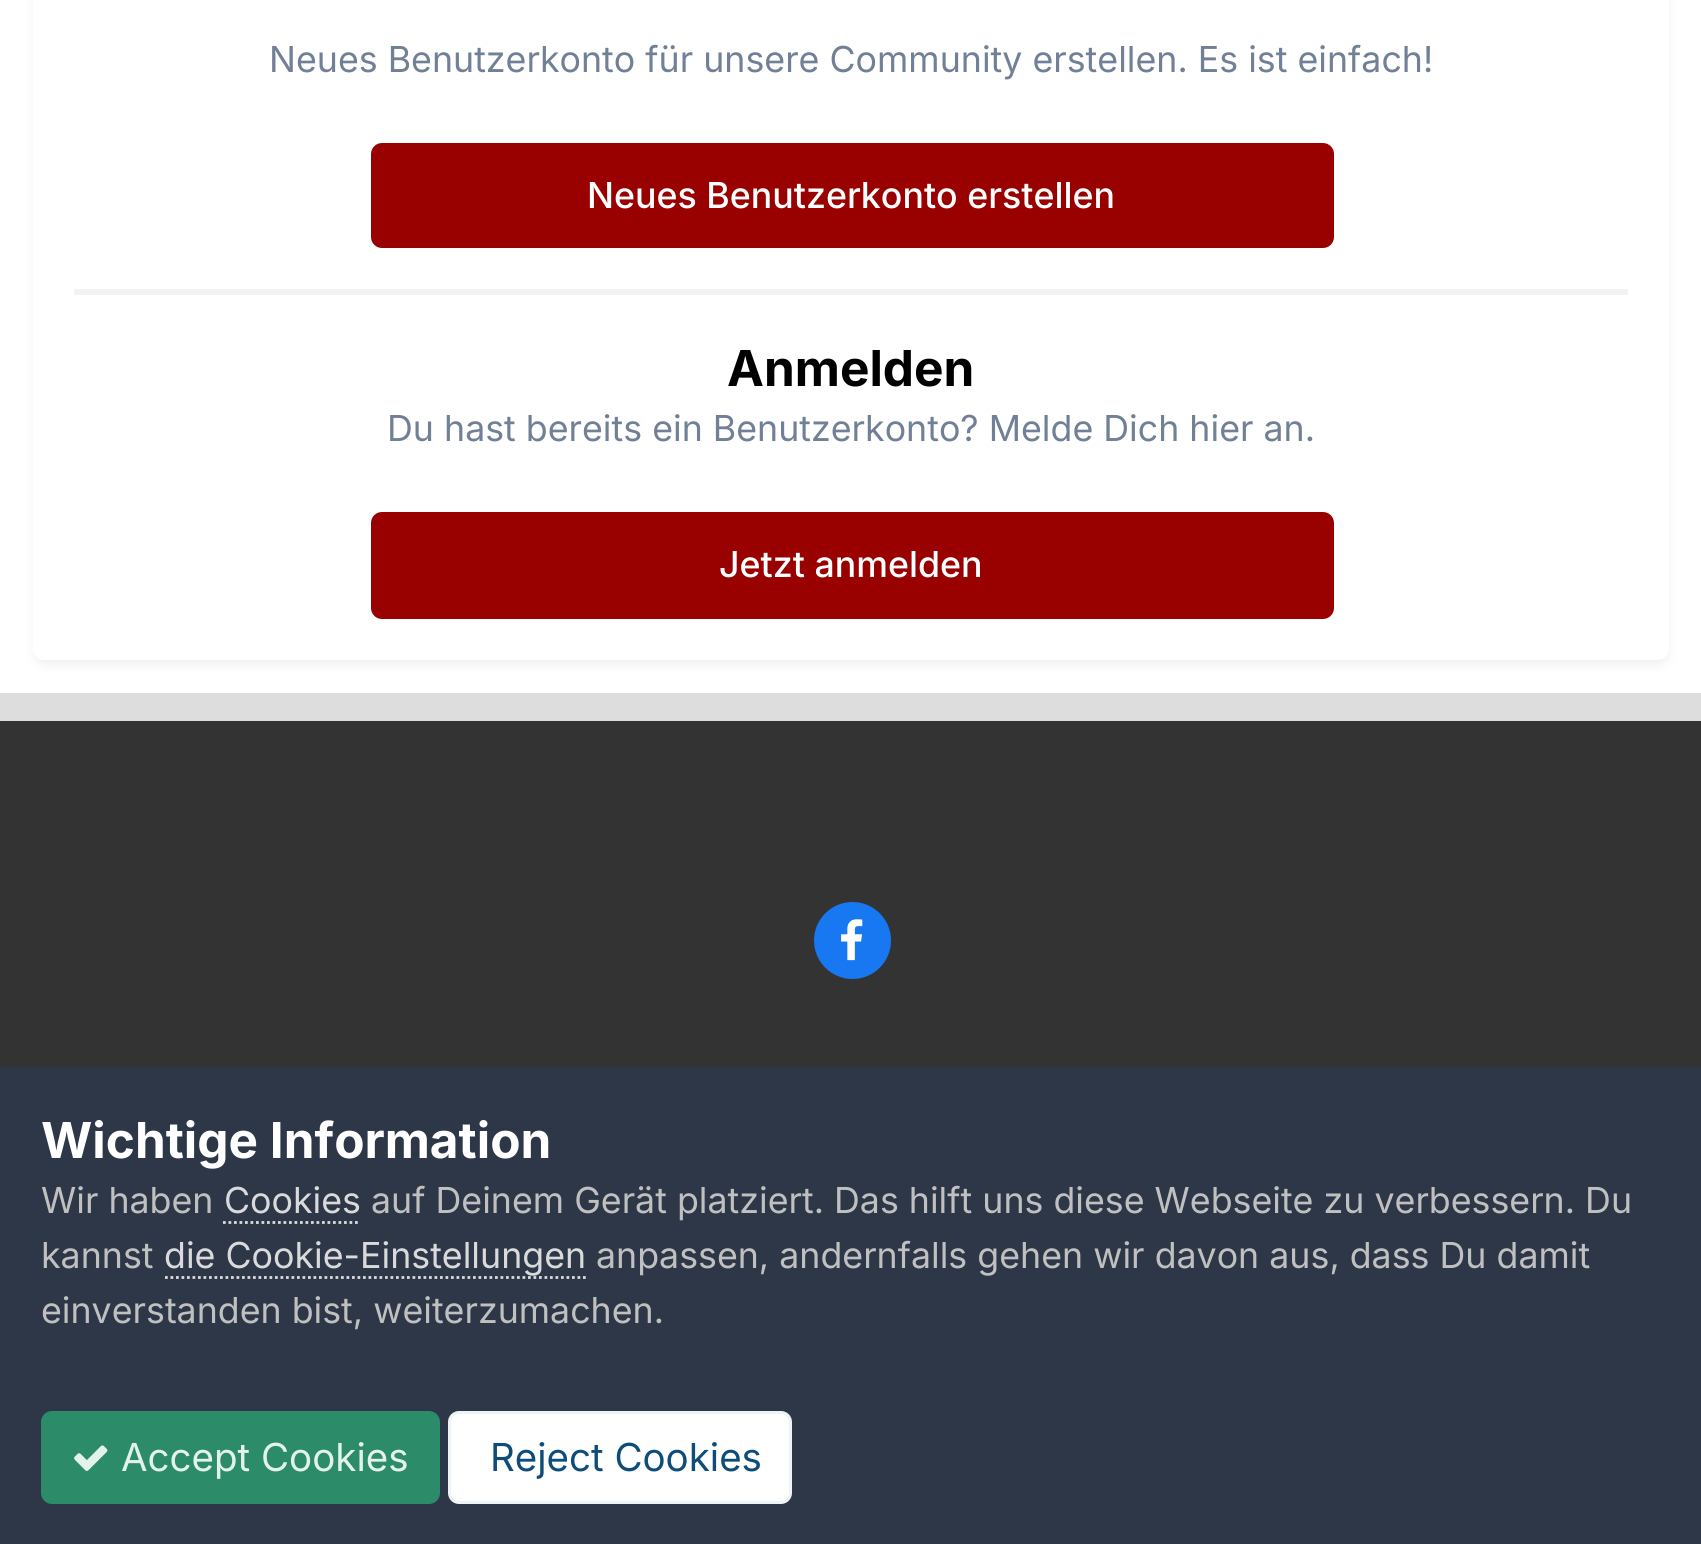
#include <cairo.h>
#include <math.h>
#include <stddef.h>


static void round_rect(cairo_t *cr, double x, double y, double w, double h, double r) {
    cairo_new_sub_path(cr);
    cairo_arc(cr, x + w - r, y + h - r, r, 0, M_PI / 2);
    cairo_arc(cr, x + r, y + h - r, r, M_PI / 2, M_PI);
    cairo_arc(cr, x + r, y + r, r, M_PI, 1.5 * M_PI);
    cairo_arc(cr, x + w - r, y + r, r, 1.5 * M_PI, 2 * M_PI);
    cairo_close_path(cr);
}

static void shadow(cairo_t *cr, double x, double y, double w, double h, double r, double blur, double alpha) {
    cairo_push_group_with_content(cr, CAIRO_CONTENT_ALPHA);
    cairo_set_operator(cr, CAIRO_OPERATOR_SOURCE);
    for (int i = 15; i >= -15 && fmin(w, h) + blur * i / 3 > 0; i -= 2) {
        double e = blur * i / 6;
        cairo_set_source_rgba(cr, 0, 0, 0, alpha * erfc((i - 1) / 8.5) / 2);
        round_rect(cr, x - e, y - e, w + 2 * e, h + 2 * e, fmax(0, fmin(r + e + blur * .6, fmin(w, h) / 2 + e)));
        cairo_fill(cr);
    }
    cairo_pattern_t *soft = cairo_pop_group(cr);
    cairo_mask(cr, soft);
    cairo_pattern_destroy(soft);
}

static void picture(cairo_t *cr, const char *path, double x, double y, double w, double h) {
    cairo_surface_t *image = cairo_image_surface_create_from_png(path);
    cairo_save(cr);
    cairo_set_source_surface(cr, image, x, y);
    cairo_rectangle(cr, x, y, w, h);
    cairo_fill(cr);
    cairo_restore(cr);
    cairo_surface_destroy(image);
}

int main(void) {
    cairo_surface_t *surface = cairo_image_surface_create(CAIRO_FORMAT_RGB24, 1701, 1544);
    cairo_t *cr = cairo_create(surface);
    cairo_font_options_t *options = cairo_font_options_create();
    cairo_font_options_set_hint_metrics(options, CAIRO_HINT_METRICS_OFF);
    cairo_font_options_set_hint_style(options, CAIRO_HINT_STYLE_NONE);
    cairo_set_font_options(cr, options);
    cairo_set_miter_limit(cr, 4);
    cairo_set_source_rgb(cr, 0.867, 0.867, 0.867);
    cairo_paint(cr);
    cairo_set_source_rgb(cr, 1, 1, 1);
    cairo_rectangle(cr, 0, 0, 1701, 693);
    cairo_fill(cr);
    cairo_set_source_rgb(cr, 0.176, 0.216, 0.282);
    shadow(cr, 36, -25, 1631, 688, 8, 5.5, 0.1);
    cairo_set_source_rgb(cr, 1, 1, 1);
    round_rect(cr, 33, -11, 1636, 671, 11);
    cairo_fill(cr);
    cairo_set_source_rgb(cr, 0.949, 0.949, 0.949);
    cairo_rectangle(cr, 74, 289, 1554, 6);
    cairo_fill(cr);
    cairo_select_font_face(cr, "Inter", CAIRO_FONT_SLANT_NORMAL, CAIRO_FONT_WEIGHT_NORMAL);
    cairo_set_font_size(cr, 35.75);
    cairo_set_source_rgb(cr, 0.443, 0.502, 0.588);
    cairo_move_to(cr, 269, 72);
    cairo_show_text(cr, "Neues Benutzerkonto für unsere Community erstellen. Es ist einfach!");
    cairo_set_source_rgb(cr, 0.6, 0, 0);
    round_rect(cr, 371, 143, 963, 105, 11);
    cairo_fill(cr);
    cairo_select_font_face(cr, "Inter Medium", CAIRO_FONT_SLANT_NORMAL, CAIRO_FONT_WEIGHT_NORMAL);
    cairo_set_source_rgb(cr, 1, 1, 1);
    cairo_move_to(cr, 587, 208);
    cairo_show_text(cr, "Neues Benutzerkonto erstellen");
    cairo_select_font_face(cr, "Inter", CAIRO_FONT_SLANT_NORMAL, CAIRO_FONT_WEIGHT_BOLD);
    cairo_set_font_size(cr, 49.5);
    cairo_set_source_rgb(cr, 0, 0, 0);
    cairo_move_to(cr, 727, 386);
    cairo_show_text(cr, "Anmelden");
    cairo_select_font_face(cr, "Inter", CAIRO_FONT_SLANT_NORMAL, CAIRO_FONT_WEIGHT_NORMAL);
    cairo_set_font_size(cr, 35.75);
    cairo_set_source_rgb(cr, 0.443, 0.502, 0.588);
    cairo_move_to(cr, 387, 441);
    cairo_show_text(cr, "Du hast bereits ein Benutzerkonto? Melde Dich hier an.");
    cairo_set_source_rgb(cr, 0.6, 0, 0);
    round_rect(cr, 371, 512, 963, 107, 11);
    cairo_fill(cr);
    cairo_select_font_face(cr, "Inter Medium", CAIRO_FONT_SLANT_NORMAL, CAIRO_FONT_WEIGHT_NORMAL);
    cairo_set_source_rgb(cr, 1, 1, 1);
    cairo_move_to(cr, 719, 577);
    cairo_show_text(cr, "Jetzt anmelden");
    cairo_set_source_rgb(cr, 0.2, 0.2, 0.2);
    cairo_rectangle(cr, 0, 721, 1701, 346);
    cairo_fill(cr);
    cairo_set_source_rgb(cr, 0.09, 0.471, 0.949);
    cairo_arc(cr, 852.5, 940.5, 38.5, 0, 2 * M_PI);
    cairo_fill(cr);
    picture(cr, "img1.png", 841, 919, 22, 42);
    cairo_set_source_rgb(cr, 0.176, 0.216, 0.282);
    cairo_rectangle(cr, 0, 1067, 1701, 477);
    cairo_fill(cr);
    cairo_select_font_face(cr, "Inter", CAIRO_FONT_SLANT_NORMAL, CAIRO_FONT_WEIGHT_BOLD);
    cairo_set_font_size(cr, 49.5);
    cairo_set_source_rgb(cr, 1, 1, 1);
    cairo_move_to(cr, 41, 1158);
    cairo_show_text(cr, "Wichtige Information");
    cairo_select_font_face(cr, "Inter", CAIRO_FONT_SLANT_NORMAL, CAIRO_FONT_WEIGHT_NORMAL);
    cairo_set_font_size(cr, 35.75);
    cairo_set_source_rgb(cr, 0.753, 0.753, 0.753);
    cairo_move_to(cr, 41, 1213);
    cairo_show_text(cr, "Wir haben");
    cairo_set_source_rgb(cr, 0.855, 0.855, 0.855);
    cairo_move_to(cr, 224, 1213);
    cairo_show_text(cr, "Cookies");
    cairo_new_path(cr);
    cairo_move_to(cr, 223, 1222.5);
    cairo_line_to(cr, 360, 1222.5);
    cairo_set_line_width(cr, 2.8);
    cairo_set_dash(cr, (double[]){2.75, 2.75}, 2, 0);
    cairo_stroke(cr);
    cairo_set_source_rgb(cr, 0.753, 0.753, 0.753);
    cairo_move_to(cr, 371, 1213);
    cairo_show_text(cr, "auf Deinem Gerät platziert. Das hilft uns diese Webseite zu verbessern. Du");
    cairo_move_to(cr, 41, 1268);
    cairo_show_text(cr, "kannst");
    cairo_set_source_rgb(cr, 0.855, 0.855, 0.855);
    cairo_move_to(cr, 164, 1268);
    cairo_show_text(cr, "die Cookie-Einstellungen");
    cairo_new_path(cr);
    cairo_move_to(cr, 165, 1277.5);
    cairo_line_to(cr, 586, 1277.5);
    cairo_stroke(cr);
    cairo_set_source_rgb(cr, 0.753, 0.753, 0.753);
    cairo_move_to(cr, 596, 1268);
    cairo_show_text(cr, "anpassen, andernfalls gehen wir davon aus, dass Du damit");
    cairo_move_to(cr, 41, 1323);
    cairo_show_text(cr, "einverstanden bist, weiterzumachen.");
    cairo_set_source_rgb(cr, 0.173, 0.549, 0.412);
    round_rect(cr, 41, 1411, 399, 93, 11);
    cairo_fill(cr);
    picture(cr, "img2.png", 74, 1445, 34, 26);
    cairo_set_font_size(cr, 38.5);
    cairo_set_source_rgb(cr, 0.89, 0.953, 0.925);
    cairo_move_to(cr, 121, 1471);
    cairo_show_text(cr, "Accept Cookies");
    cairo_set_source_rgb(cr, 1, 1, 1);
    round_rect(cr, 448, 1411, 344, 93, 11);
    cairo_fill(cr);
    round_rect(cr, 449.5, 1412.5, 341, 90, 9.5);
    cairo_set_source_rgba(cr, 0.055, 0.298, 0.475, 0.07);
    cairo_set_line_width(cr, 3);
    cairo_set_dash(cr, NULL, 0, 0);
    cairo_stroke(cr);
    cairo_set_source_rgb(cr, 0.055, 0.298, 0.475);
    cairo_move_to(cr, 490, 1471);
    cairo_show_text(cr, "Reject Cookies");
    cairo_surface_write_to_png(surface, "page.png");
    cairo_font_options_destroy(options);
    cairo_destroy(cr);
    cairo_surface_destroy(surface);
    return 0;
}
